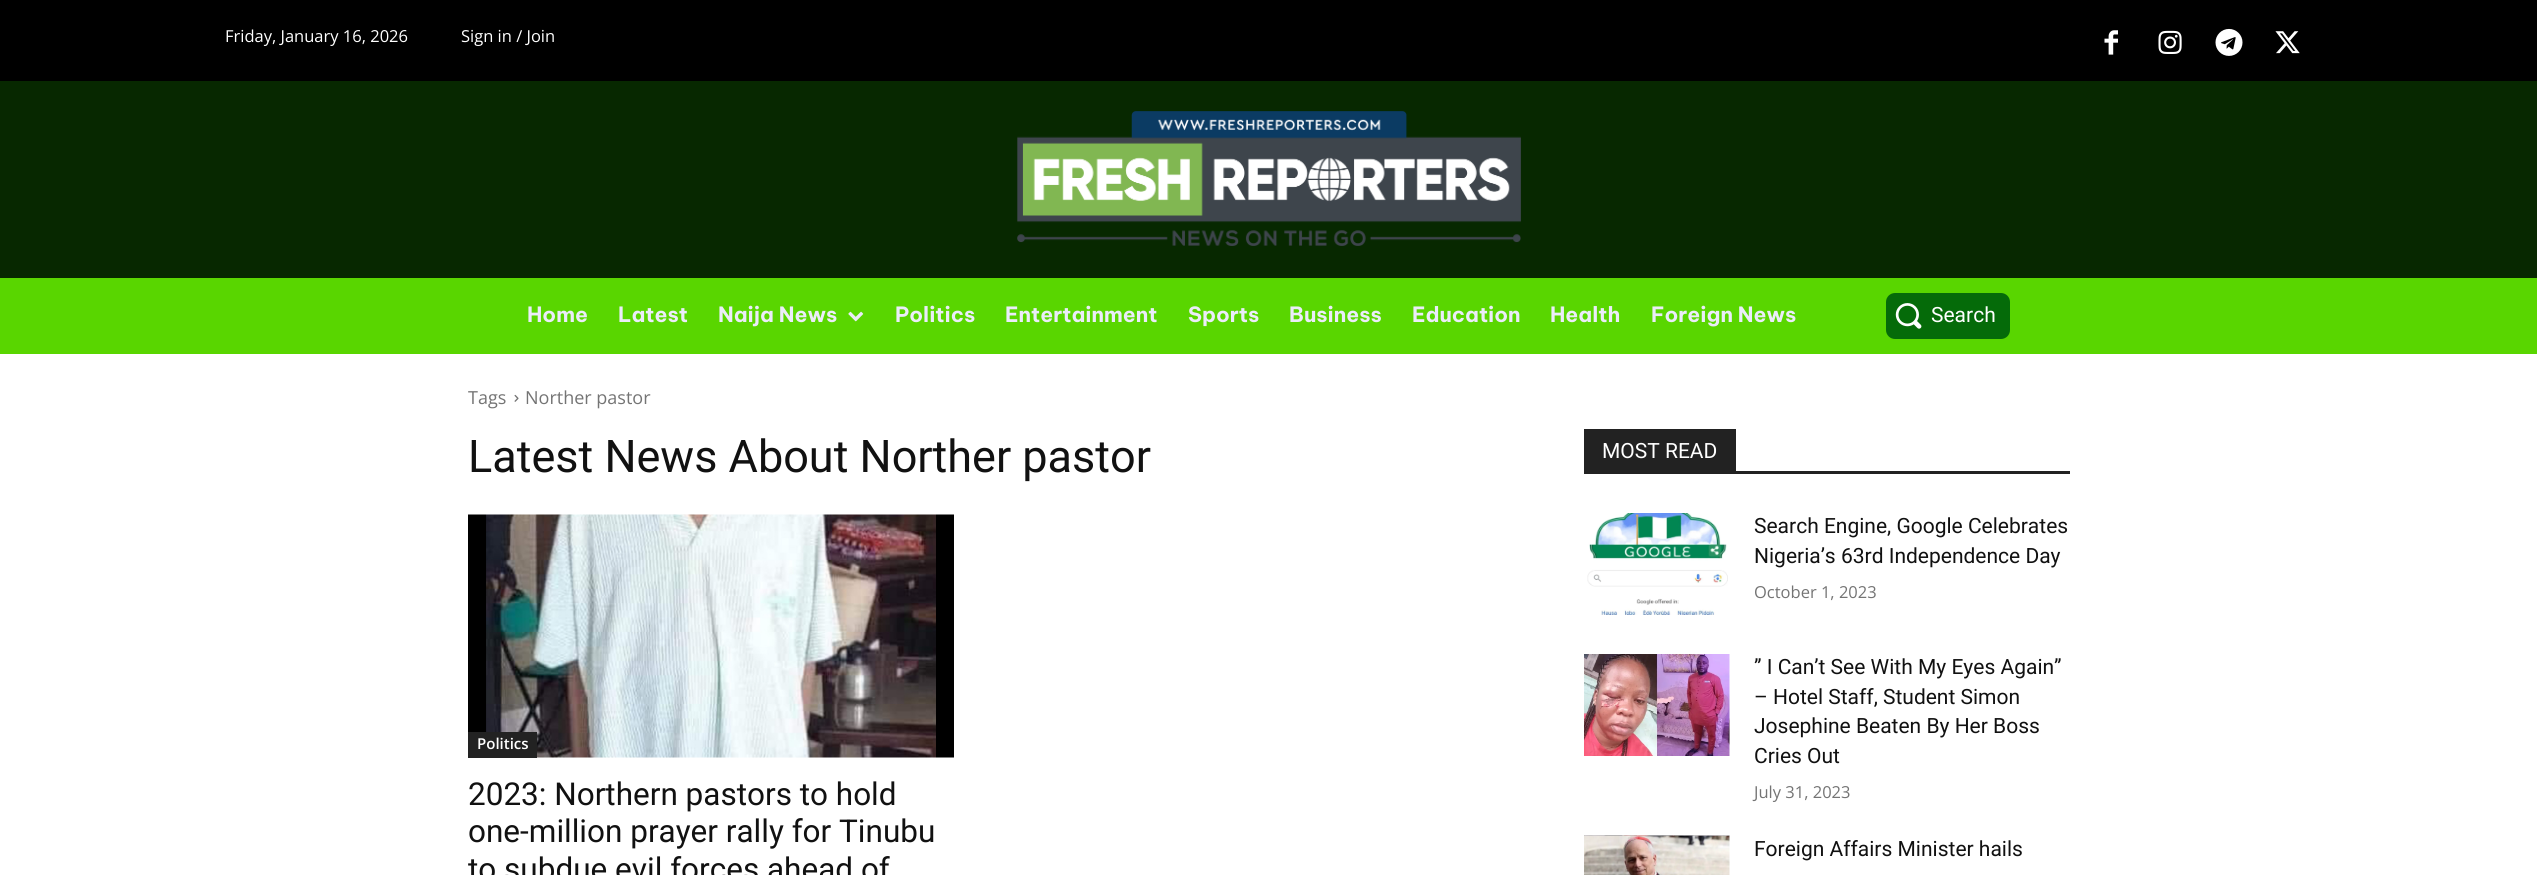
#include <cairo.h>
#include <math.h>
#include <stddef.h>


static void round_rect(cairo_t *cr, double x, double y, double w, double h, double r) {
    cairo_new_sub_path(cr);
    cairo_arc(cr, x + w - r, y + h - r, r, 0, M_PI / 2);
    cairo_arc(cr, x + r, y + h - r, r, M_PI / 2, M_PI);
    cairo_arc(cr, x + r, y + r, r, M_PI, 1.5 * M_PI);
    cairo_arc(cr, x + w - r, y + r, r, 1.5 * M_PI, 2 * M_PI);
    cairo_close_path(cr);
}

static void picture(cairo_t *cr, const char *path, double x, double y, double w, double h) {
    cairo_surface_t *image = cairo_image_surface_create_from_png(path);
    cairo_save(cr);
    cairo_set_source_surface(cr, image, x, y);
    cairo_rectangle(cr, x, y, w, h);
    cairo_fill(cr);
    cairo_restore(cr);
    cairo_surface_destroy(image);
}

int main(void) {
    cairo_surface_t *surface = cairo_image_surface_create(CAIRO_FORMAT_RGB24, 2537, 875);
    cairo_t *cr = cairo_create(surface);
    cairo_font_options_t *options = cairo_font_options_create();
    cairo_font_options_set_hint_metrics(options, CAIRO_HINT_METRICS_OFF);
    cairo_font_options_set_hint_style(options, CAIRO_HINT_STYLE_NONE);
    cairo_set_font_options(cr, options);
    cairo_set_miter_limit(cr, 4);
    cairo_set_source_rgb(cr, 1, 1, 1);
    cairo_paint(cr);
    cairo_set_source_rgb(cr, 0, 0, 0);
    cairo_rectangle(cr, 0, 0, 2537, 81);
    cairo_fill(cr);
    cairo_select_font_face(cr, "Open Sans", CAIRO_FONT_SLANT_NORMAL, CAIRO_FONT_WEIGHT_NORMAL);
    cairo_set_font_size(cr, 16.5);
    cairo_set_source_rgb(cr, 1, 1, 1);
    cairo_move_to(cr, 225, 42);
    cairo_show_text(cr, "Friday, January 16, 2026");
    cairo_move_to(cr, 461, 42);
    cairo_show_text(cr, "Sign in / Join");
    picture(cr, "img1.png", 2104, 30, 14, 25);
    picture(cr, "img2.png", 2158, 30, 24, 24);
    picture(cr, "img3.png", 2215, 28, 28, 28);
    picture(cr, "img4.png", 2275, 31, 25, 23);
    cairo_set_source_rgb(cr, 0.031, 0.157, 0);
    cairo_rectangle(cr, 0, 81, 2537, 197);
    cairo_fill(cr);
    picture(cr, "img5.png", 1017, 111, 504, 135);
    cairo_set_source_rgb(cr, 0.349, 0.839, 0);
    cairo_rectangle(cr, 0, 278, 2537, 76);
    cairo_fill(cr);
    cairo_select_font_face(cr, "Be Vietnam Pro", CAIRO_FONT_SLANT_NORMAL, CAIRO_FONT_WEIGHT_BOLD);
    cairo_set_font_size(cr, 21);
    cairo_set_source_rgb(cr, 0.918, 0.925, 0.973);
    cairo_move_to(cr, 527, 322);
    cairo_show_text(cr, "Home");
    cairo_move_to(cr, 618, 322);
    cairo_show_text(cr, "Latest");
    cairo_move_to(cr, 718, 322);
    cairo_show_text(cr, "Naija News");
    picture(cr, "img6.png", 848, 311, 16, 11);
    cairo_move_to(cr, 895, 322);
    cairo_show_text(cr, "Politics");
    cairo_move_to(cr, 1005, 322);
    cairo_show_text(cr, "Entertainment");
    cairo_move_to(cr, 1188, 322);
    cairo_show_text(cr, "Sports");
    cairo_move_to(cr, 1289, 322);
    cairo_show_text(cr, "Business");
    cairo_move_to(cr, 1412, 322);
    cairo_show_text(cr, "Education");
    cairo_move_to(cr, 1550, 322);
    cairo_show_text(cr, "Health");
    cairo_move_to(cr, 1651, 322);
    cairo_show_text(cr, "Foreign News");
    cairo_set_source_rgb(cr, 0.02, 0.42, 0.039);
    round_rect(cr, 1886, 293, 124, 46, 9);
    cairo_fill(cr);
    picture(cr, "img7.png", 1895, 303, 27, 26);
    cairo_select_font_face(cr, "Roboto", CAIRO_FONT_SLANT_NORMAL, CAIRO_FONT_WEIGHT_NORMAL);
    cairo_set_source_rgb(cr, 1, 1, 1);
    cairo_move_to(cr, 1931, 322);
    cairo_show_text(cr, "Search");
    cairo_select_font_face(cr, "Open Sans", CAIRO_FONT_SLANT_NORMAL, CAIRO_FONT_WEIGHT_NORMAL);
    cairo_set_font_size(cr, 18);
    cairo_set_source_rgb(cr, 0.455, 0.455, 0.455);
    cairo_move_to(cr, 468, 404);
    cairo_show_text(cr, "Tags");
    picture(cr, "img8.png", 514, 394, 5, 8);
    cairo_move_to(cr, 525, 404);
    cairo_show_text(cr, "Norther pastor");
    cairo_select_font_face(cr, "Roboto", CAIRO_FONT_SLANT_NORMAL, CAIRO_FONT_WEIGHT_NORMAL);
    cairo_set_font_size(cr, 45);
    cairo_set_source_rgb(cr, 0.067, 0.067, 0.067);
    cairo_move_to(cr, 468, 472);
    cairo_show_text(cr, "Latest News About Norther pastor");
    picture(cr, "img9.png", 468, 514, 486, 244);
    cairo_set_source_rgb(cr, 0.133, 0.133, 0.133);
    cairo_rectangle(cr, 468, 732, 69, 26);
    cairo_fill(cr);
    cairo_select_font_face(cr, "Open Sans SemiBold", CAIRO_FONT_SLANT_NORMAL, CAIRO_FONT_WEIGHT_NORMAL);
    cairo_set_font_size(cr, 15);
    cairo_set_source_rgb(cr, 1, 1, 1);
    cairo_move_to(cr, 477, 749);
    cairo_show_text(cr, "Politics");
    cairo_select_font_face(cr, "Roboto", CAIRO_FONT_SLANT_NORMAL, CAIRO_FONT_WEIGHT_NORMAL);
    cairo_set_font_size(cr, 31.5);
    cairo_set_source_rgb(cr, 0.067, 0.067, 0.067);
    cairo_move_to(cr, 468, 805);
    cairo_show_text(cr, "2023: Northern pastors to hold");
    cairo_move_to(cr, 468, 842);
    cairo_show_text(cr, "one-million prayer rally for Tinubu");
    cairo_move_to(cr, 468, 880);
    cairo_show_text(cr, "to subdue evil forces ahead of");
    cairo_set_source_rgb(cr, 0.133, 0.133, 0.133);
    cairo_rectangle(cr, 1584, 471, 486, 3);
    cairo_fill(cr);
    cairo_rectangle(cr, 1584, 429, 152, 42);
    cairo_fill(cr);
    cairo_set_font_size(cr, 21);
    cairo_set_source_rgb(cr, 1, 1, 1);
    cairo_move_to(cr, 1602, 458);
    cairo_show_text(cr, "MOST READ");
    picture(cr, "img10.png", 1587, 513, 141, 102);
    cairo_set_source_rgb(cr, 0.067, 0.067, 0.067);
    cairo_move_to(cr, 1754, 533);
    cairo_show_text(cr, "Search Engine, Google Celebrates");
    cairo_move_to(cr, 1754, 563);
    cairo_show_text(cr, "Nigeria’s 63rd Independence Day");
    cairo_select_font_face(cr, "Open Sans", CAIRO_FONT_SLANT_NORMAL, CAIRO_FONT_WEIGHT_NORMAL);
    cairo_set_font_size(cr, 16.5);
    cairo_set_source_rgb(cr, 0.455, 0.455, 0.455);
    cairo_move_to(cr, 1754, 598);
    cairo_show_text(cr, "October 1, 2023");
    picture(cr, "img11.png", 1584, 654, 146, 102);
    cairo_select_font_face(cr, "Roboto", CAIRO_FONT_SLANT_NORMAL, CAIRO_FONT_WEIGHT_NORMAL);
    cairo_set_font_size(cr, 21);
    cairo_set_source_rgb(cr, 0.067, 0.067, 0.067);
    cairo_move_to(cr, 1754, 674);
    cairo_show_text(cr, "” I Can’t See With My Eyes Again”");
    cairo_move_to(cr, 1754, 704);
    cairo_show_text(cr, "– Hotel Staff, Student Simon");
    cairo_move_to(cr, 1754, 733);
    cairo_show_text(cr, "Josephine Beaten By Her Boss");
    cairo_move_to(cr, 1754, 763);
    cairo_show_text(cr, "Cries Out");
    cairo_select_font_face(cr, "Open Sans", CAIRO_FONT_SLANT_NORMAL, CAIRO_FONT_WEIGHT_NORMAL);
    cairo_set_font_size(cr, 16.5);
    cairo_set_source_rgb(cr, 0.455, 0.455, 0.455);
    cairo_move_to(cr, 1754, 798);
    cairo_show_text(cr, "July 31, 2023");
    picture(cr, "img12.png", 1584, 835, 146, 40);
    cairo_select_font_face(cr, "Roboto", CAIRO_FONT_SLANT_NORMAL, CAIRO_FONT_WEIGHT_NORMAL);
    cairo_set_font_size(cr, 21);
    cairo_set_source_rgb(cr, 0.067, 0.067, 0.067);
    cairo_move_to(cr, 1754, 856);
    cairo_show_text(cr, "Foreign Affairs Minister hails");
    cairo_surface_write_to_png(surface, "page.png");
    cairo_font_options_destroy(options);
    cairo_destroy(cr);
    cairo_surface_destroy(surface);
    return 0;
}
